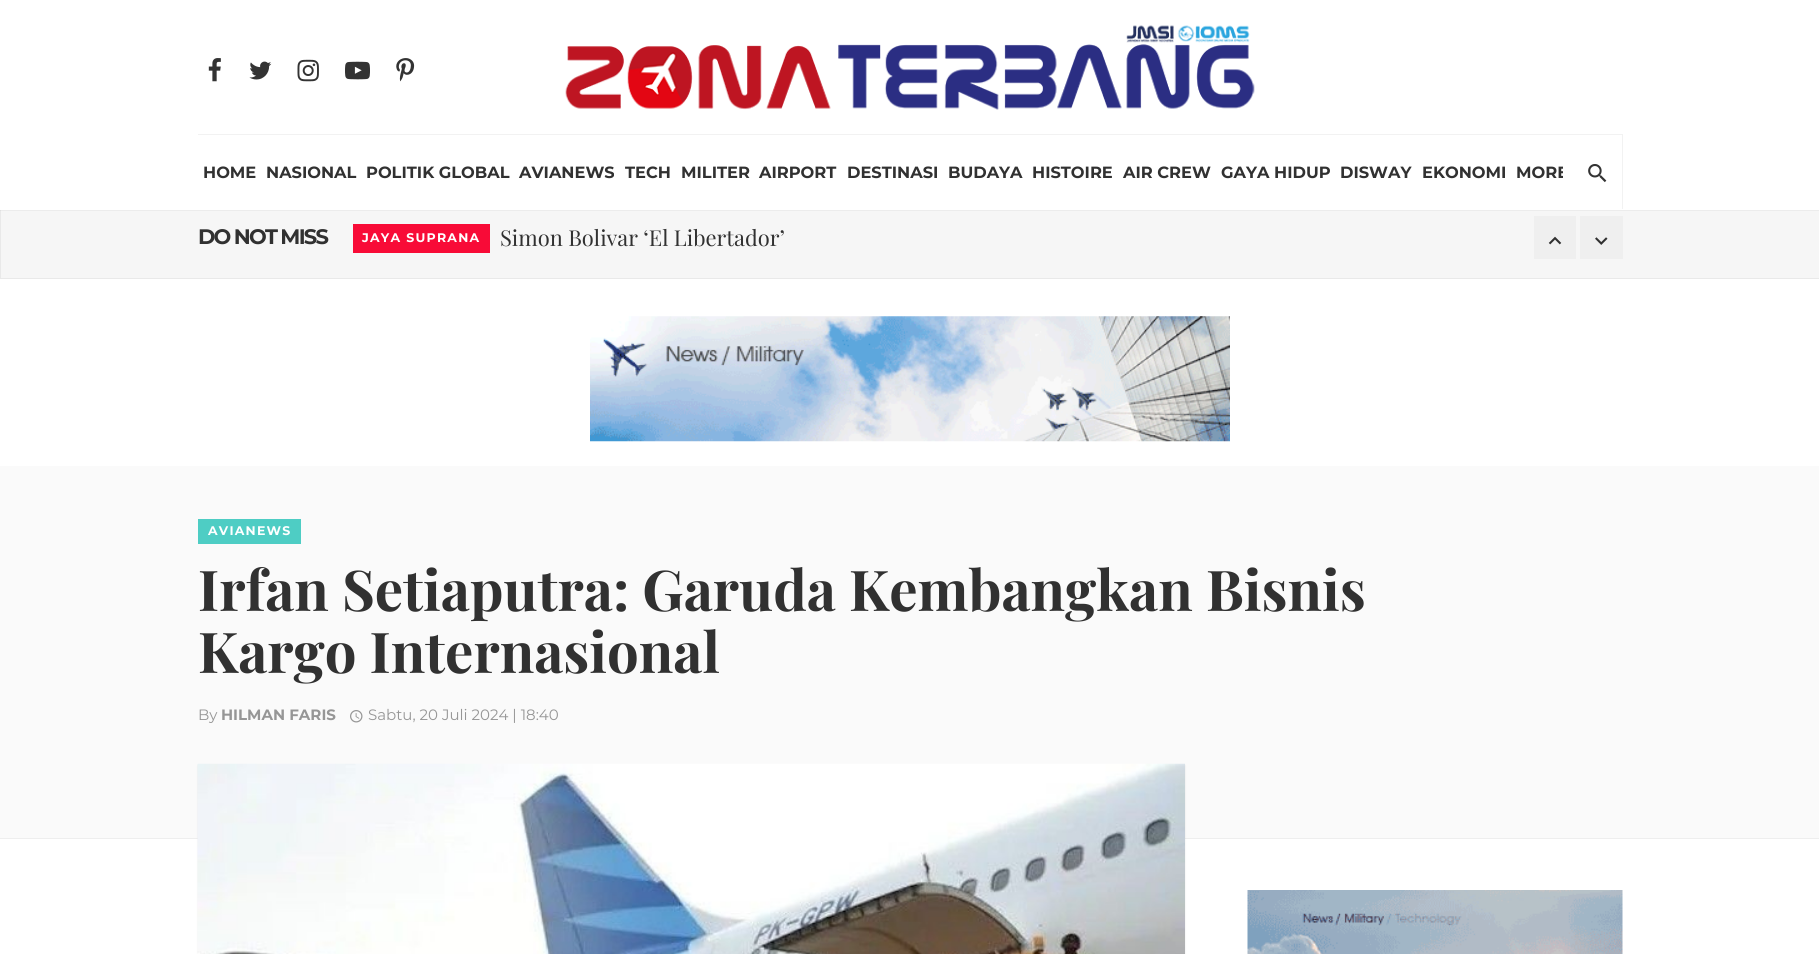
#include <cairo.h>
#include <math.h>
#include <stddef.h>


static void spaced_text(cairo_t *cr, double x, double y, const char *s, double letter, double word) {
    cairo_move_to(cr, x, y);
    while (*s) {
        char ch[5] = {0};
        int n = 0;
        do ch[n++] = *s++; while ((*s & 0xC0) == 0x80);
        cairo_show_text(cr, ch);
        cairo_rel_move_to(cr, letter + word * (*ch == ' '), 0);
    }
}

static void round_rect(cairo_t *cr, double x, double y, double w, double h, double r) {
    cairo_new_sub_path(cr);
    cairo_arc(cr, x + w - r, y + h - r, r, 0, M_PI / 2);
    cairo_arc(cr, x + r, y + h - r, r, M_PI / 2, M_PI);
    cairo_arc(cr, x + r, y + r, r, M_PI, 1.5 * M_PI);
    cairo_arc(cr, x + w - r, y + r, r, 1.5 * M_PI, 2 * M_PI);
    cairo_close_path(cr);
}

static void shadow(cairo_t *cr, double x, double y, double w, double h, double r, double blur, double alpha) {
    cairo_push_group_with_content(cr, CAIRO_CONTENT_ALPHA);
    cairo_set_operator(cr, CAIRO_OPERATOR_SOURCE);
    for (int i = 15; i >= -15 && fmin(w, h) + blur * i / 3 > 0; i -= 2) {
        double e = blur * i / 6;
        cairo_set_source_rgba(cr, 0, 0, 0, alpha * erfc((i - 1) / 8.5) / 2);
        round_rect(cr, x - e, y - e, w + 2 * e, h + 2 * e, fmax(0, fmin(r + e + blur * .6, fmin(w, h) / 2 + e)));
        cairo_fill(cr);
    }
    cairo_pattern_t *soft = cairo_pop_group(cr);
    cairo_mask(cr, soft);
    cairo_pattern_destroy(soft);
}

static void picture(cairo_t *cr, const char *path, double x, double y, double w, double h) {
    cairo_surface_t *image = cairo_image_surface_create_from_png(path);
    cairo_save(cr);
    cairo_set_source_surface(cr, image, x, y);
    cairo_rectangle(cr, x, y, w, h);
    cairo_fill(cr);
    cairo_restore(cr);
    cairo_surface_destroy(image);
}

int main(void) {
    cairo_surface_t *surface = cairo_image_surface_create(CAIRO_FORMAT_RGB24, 1819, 954);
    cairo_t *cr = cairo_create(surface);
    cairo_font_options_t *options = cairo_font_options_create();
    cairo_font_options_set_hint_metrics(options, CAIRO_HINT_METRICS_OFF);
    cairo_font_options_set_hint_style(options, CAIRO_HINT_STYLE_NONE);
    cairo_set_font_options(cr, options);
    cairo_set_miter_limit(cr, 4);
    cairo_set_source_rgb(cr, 1, 1, 1);
    cairo_paint(cr);
    cairo_set_source_rgb(cr, 0.961, 0.961, 0.961);
    cairo_rectangle(cr, 1, 210, 1818, 68);
    cairo_fill(cr);
    cairo_rectangle(cr, 0.5, 198.5, 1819, 80);
    cairo_set_source_rgb(cr, 0.914, 0.914, 0.914);
    cairo_set_line_width(cr, 1);
    cairo_stroke(cr);
    cairo_set_source_rgba(cr, 0, 0, 0, 0.04);
    cairo_rectangle(cr, 0, 210, 1819, 1);
    cairo_fill(cr);
    cairo_set_source_rgb(cr, 1, 1, 1);
    cairo_rectangle(cr, 0, 198, 1819, 12);
    cairo_fill(cr);
    picture(cr, "img1.png", 208, 58, 13, 24);
    picture(cr, "img2.png", 249, 61, 23, 19);
    picture(cr, "img3.png", 297, 59, 22, 23);
    picture(cr, "img4.png", 345, 61, 25, 19);
    picture(cr, "img5.png", 396, 58, 19, 24);
    picture(cr, "img6.png", 565, 25, 690, 85);
    cairo_set_source_rgb(cr, 0.949, 0.949, 0.949);
    cairo_new_path(cr);
    cairo_move_to(cr, 198, 134);
    cairo_line_to(cr, 198, 135);
    cairo_line_to(cr, 1622, 135);
    cairo_line_to(cr, 1622, 209);
    cairo_line_to(cr, 1623, 209);
    cairo_line_to(cr, 1623, 134);
    cairo_close_path(cr);
    cairo_fill(cr);
    cairo_select_font_face(cr, "Montserrat", CAIRO_FONT_SLANT_NORMAL, CAIRO_FONT_WEIGHT_BOLD);
    cairo_set_font_size(cr, 16.25);
    cairo_set_source_rgb(cr, 0.192, 0.192, 0.192);
    cairo_move_to(cr, 203, 178);
    cairo_show_text(cr, "HOME");
    cairo_move_to(cr, 266, 178);
    cairo_show_text(cr, "NASIONAL");
    cairo_move_to(cr, 366, 178);
    cairo_show_text(cr, "POLITIK GLOBAL");
    cairo_move_to(cr, 519, 178);
    cairo_show_text(cr, "AVIANEWS");
    cairo_move_to(cr, 625, 178);
    cairo_show_text(cr, "TECH");
    cairo_move_to(cr, 681, 178);
    cairo_show_text(cr, "MILITER");
    cairo_move_to(cr, 759, 178);
    cairo_show_text(cr, "AIRPORT");
    cairo_move_to(cr, 847, 178);
    cairo_show_text(cr, "DESTINASI");
    cairo_move_to(cr, 948, 178);
    cairo_show_text(cr, "BUDAYA");
    cairo_move_to(cr, 1032, 178);
    cairo_show_text(cr, "HISTOIRE");
    cairo_move_to(cr, 1123, 178);
    cairo_show_text(cr, "AIR CREW");
    cairo_move_to(cr, 1221, 178);
    cairo_show_text(cr, "GAYA HIDUP");
    cairo_move_to(cr, 1340, 178);
    cairo_show_text(cr, "DISWAY");
    cairo_move_to(cr, 1422, 178);
    cairo_show_text(cr, "EKONOMI");
    cairo_save(cr);
    cairo_rectangle(cr, 198, 135, 1365, 75);
    cairo_clip(cr);
    cairo_move_to(cr, 1516, 178);
    cairo_show_text(cr, "MORE");
    cairo_restore(cr);
    picture(cr, "img7.png", 1588, 164, 19, 19);
    cairo_set_font_size(cr, 21);
    spaced_text(cr, 198, 244, "DO NOT MISS", -1.75, 0);
    cairo_set_source_rgb(cr, 0.969, 0.043, 0.216);
    cairo_rectangle(cr, 353, 224, 137, 29);
    cairo_fill(cr);
    cairo_set_font_size(cr, 12.5);
    cairo_set_source_rgb(cr, 1, 1, 1);
    spaced_text(cr, 362, 242, "JAYA SUPRANA", 1.25, 0);
    cairo_select_font_face(cr, "Playfair Display", CAIRO_FONT_SLANT_NORMAL, CAIRO_FONT_WEIGHT_NORMAL);
    cairo_set_font_size(cr, 21.9);
    cairo_set_source_rgb(cr, 0.192, 0.192, 0.192);
    cairo_move_to(cr, 500, 246);
    cairo_show_text(cr, "Simon Bolivar ‘El Libertador’");
    cairo_set_source_rgb(cr, 0.937, 0.937, 0.937);
    cairo_rectangle(cr, 1534, 216, 42, 43);
    cairo_fill(cr);
    picture(cr, "img8.png", 1548, 236, 14, 9);
    cairo_rectangle(cr, 1580, 216, 43, 43);
    cairo_fill(cr);
    picture(cr, "img9.png", 1595, 237, 13, 8);
    picture(cr, "img10.png", 590, 316, 640, 126);
    cairo_set_source_rgb(cr, 0.98, 0.98, 0.98);
    cairo_rectangle(cr, 0, 466, 1819, 372);
    cairo_fill(cr);
    cairo_set_source_rgb(cr, 0.933, 0.933, 0.933);
    cairo_rectangle(cr, 0, 838, 1819, 1);
    cairo_fill(cr);
    cairo_set_source_rgb(cr, 0.306, 0.804, 0.769);
    cairo_rectangle(cr, 198, 519, 103, 25);
    cairo_fill(cr);
    cairo_select_font_face(cr, "Montserrat", CAIRO_FONT_SLANT_NORMAL, CAIRO_FONT_WEIGHT_BOLD);
    cairo_set_font_size(cr, 12.5);
    cairo_set_source_rgb(cr, 1, 1, 1);
    spaced_text(cr, 208, 535, "AVIANEWS", 1.25, 0);
    cairo_select_font_face(cr, "Playfair Display", CAIRO_FONT_SLANT_NORMAL, CAIRO_FONT_WEIGHT_BOLD);
    cairo_set_font_size(cr, 56.25);
    cairo_set_source_rgb(cr, 0.192, 0.192, 0.192);
    cairo_move_to(cr, 198, 611);
    cairo_show_text(cr, "Irfan Setiaputra: Garuda Kembangkan Bisnis");
    cairo_move_to(cr, 198, 673);
    cairo_show_text(cr, "Kargo Internasional");
    cairo_select_font_face(cr, "Montserrat", CAIRO_FONT_SLANT_NORMAL, CAIRO_FONT_WEIGHT_NORMAL);
    cairo_set_font_size(cr, 15);
    cairo_set_source_rgb(cr, 0.588, 0.588, 0.588);
    cairo_move_to(cr, 198, 720);
    cairo_show_text(cr, "By");
    cairo_select_font_face(cr, "Montserrat", CAIRO_FONT_SLANT_NORMAL, CAIRO_FONT_WEIGHT_BOLD);
    cairo_move_to(cr, 221, 720);
    cairo_show_text(cr, "HILMAN FARIS");
    picture(cr, "img11.png", 350, 710, 13, 13);
    cairo_select_font_face(cr, "Montserrat", CAIRO_FONT_SLANT_NORMAL, CAIRO_FONT_WEIGHT_NORMAL);
    cairo_move_to(cr, 368, 720);
    cairo_show_text(cr, "Sabtu, 20 Juli 2024 | 18:40");
    cairo_set_source_rgb(cr, 0, 0, 0);
    shadow(cr, 198, 765, 987, 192, 0, 1, 0.08);
    picture(cr, "img12.png", 197, 763, 988, 191);
    picture(cr, "img13.png", 1247, 890, 376, 64);
    cairo_surface_write_to_png(surface, "page.png");
    cairo_font_options_destroy(options);
    cairo_destroy(cr);
    cairo_surface_destroy(surface);
    return 0;
}
